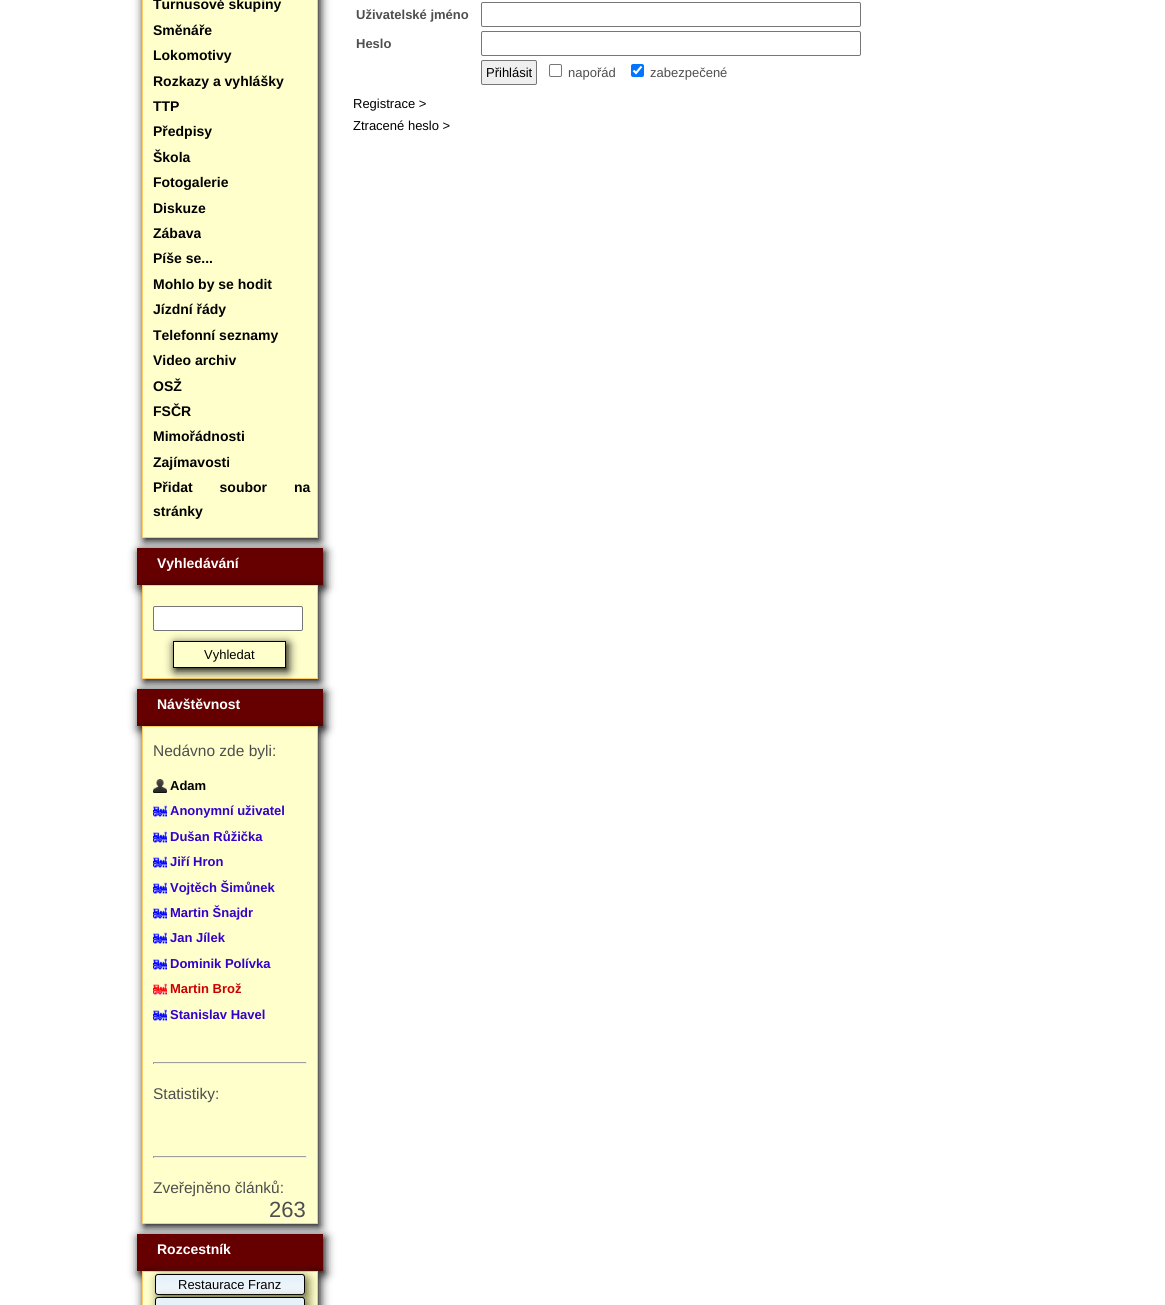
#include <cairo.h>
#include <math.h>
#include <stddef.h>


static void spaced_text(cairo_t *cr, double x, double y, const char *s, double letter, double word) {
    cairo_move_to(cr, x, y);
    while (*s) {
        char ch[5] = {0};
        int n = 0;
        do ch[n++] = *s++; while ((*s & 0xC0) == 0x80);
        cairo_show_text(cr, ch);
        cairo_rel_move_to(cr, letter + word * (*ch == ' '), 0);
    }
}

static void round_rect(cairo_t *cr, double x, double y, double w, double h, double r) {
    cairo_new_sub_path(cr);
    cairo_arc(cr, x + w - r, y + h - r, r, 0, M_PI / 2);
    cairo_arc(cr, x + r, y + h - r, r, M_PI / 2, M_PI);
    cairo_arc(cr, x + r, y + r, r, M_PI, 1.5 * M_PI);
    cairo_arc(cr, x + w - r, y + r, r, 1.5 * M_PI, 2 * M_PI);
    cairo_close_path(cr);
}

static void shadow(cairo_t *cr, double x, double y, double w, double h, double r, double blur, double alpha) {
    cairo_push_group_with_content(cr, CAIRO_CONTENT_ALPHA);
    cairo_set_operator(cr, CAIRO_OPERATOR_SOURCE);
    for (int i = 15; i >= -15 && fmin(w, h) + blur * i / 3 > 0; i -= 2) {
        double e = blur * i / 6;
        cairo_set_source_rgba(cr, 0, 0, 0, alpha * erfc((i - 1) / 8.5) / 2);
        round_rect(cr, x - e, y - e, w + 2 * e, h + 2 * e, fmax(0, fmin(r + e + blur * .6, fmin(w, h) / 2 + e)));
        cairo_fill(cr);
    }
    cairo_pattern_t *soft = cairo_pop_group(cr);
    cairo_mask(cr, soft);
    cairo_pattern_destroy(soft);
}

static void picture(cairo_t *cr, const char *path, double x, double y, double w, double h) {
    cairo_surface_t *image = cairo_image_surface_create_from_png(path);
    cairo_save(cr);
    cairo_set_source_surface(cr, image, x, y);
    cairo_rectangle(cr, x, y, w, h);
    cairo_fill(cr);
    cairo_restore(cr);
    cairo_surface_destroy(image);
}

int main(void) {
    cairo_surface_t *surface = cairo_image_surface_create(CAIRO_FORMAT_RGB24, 1165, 1305);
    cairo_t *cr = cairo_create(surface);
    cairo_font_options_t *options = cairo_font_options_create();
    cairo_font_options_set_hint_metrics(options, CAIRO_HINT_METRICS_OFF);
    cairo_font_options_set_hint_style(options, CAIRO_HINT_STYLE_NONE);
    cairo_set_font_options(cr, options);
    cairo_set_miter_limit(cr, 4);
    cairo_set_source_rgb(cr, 1, 1, 1);
    cairo_paint(cr);
    cairo_set_source_rgb(cr, 0, 0, 0);
    shadow(cr, 144, -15, 176, 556, 0, 5, 1);
    cairo_set_source_rgb(cr, 1, 1, 0.8);
    cairo_rectangle(cr, 142.5, -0.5, 175, 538);
    cairo_fill_preserve(cr);
    cairo_set_source_rgb(cr, 1, 0.8, 0.4);
    cairo_set_line_width(cr, 1);
    cairo_stroke(cr);
    cairo_select_font_face(cr, "Liberation Sans", CAIRO_FONT_SLANT_NORMAL, CAIRO_FONT_WEIGHT_BOLD);
    cairo_set_font_size(cr, 14);
    cairo_set_source_rgb(cr, 0, 0, 0);
    cairo_move_to(cr, 153, 9);
    cairo_show_text(cr, "Turnusové skupiny");
    cairo_move_to(cr, 153, 35);
    cairo_show_text(cr, "Směnáře");
    cairo_move_to(cr, 153, 60);
    cairo_show_text(cr, "Lokomotivy");
    cairo_move_to(cr, 153, 86);
    cairo_show_text(cr, "Rozkazy a vyhlášky");
    cairo_move_to(cr, 153, 111);
    cairo_show_text(cr, "TTP");
    cairo_move_to(cr, 153, 136);
    cairo_show_text(cr, "Předpisy");
    cairo_move_to(cr, 153, 162);
    cairo_show_text(cr, "Škola");
    cairo_move_to(cr, 153, 187);
    cairo_show_text(cr, "Fotogalerie");
    cairo_move_to(cr, 153, 213);
    cairo_show_text(cr, "Diskuze");
    cairo_move_to(cr, 153, 238);
    cairo_show_text(cr, "Zábava");
    cairo_move_to(cr, 153, 263);
    cairo_show_text(cr, "Píše se...");
    cairo_move_to(cr, 153, 289);
    cairo_show_text(cr, "Mohlo by se hodit");
    cairo_move_to(cr, 153, 314);
    cairo_show_text(cr, "Jízdní řády");
    cairo_move_to(cr, 153, 340);
    cairo_show_text(cr, "Telefonní seznamy");
    cairo_move_to(cr, 153, 365);
    cairo_show_text(cr, "Video archiv");
    cairo_move_to(cr, 153, 391);
    cairo_show_text(cr, "OSŽ");
    cairo_move_to(cr, 153, 416);
    cairo_show_text(cr, "FSČR");
    cairo_move_to(cr, 153, 441);
    cairo_show_text(cr, "Mimořádnosti");
    cairo_move_to(cr, 153, 467);
    cairo_show_text(cr, "Zajímavosti");
    spaced_text(cr, 153, 492, "Přidat soubor na", 0, 23);
    cairo_move_to(cr, 153, 516);
    cairo_show_text(cr, "stránky");
    cairo_set_source_rgb(cr, 0, 0, 0);
    shadow(cr, 139, 551, 186, 37, 0, 5, 1);
    cairo_set_source_rgb(cr, 0.4, 0, 0);
    cairo_rectangle(cr, 137, 548, 186, 37);
    cairo_fill(cr);
    cairo_set_source_rgb(cr, 1, 1, 1);
    cairo_move_to(cr, 157, 568);
    cairo_show_text(cr, "Vyhledávání");
    cairo_set_source_rgb(cr, 0, 0, 0);
    shadow(cr, 144, 588, 176, 94, 0, 5, 1);
    cairo_set_source_rgb(cr, 1, 1, 0.8);
    cairo_rectangle(cr, 142.5, 585.5, 175, 93);
    cairo_fill_preserve(cr);
    cairo_set_source_rgb(cr, 1, 0.8, 0.4);
    cairo_stroke(cr);
    cairo_set_source_rgb(cr, 1, 1, 1);
    round_rect(cr, 153.5, 606.5, 149, 24, 1.5);
    cairo_fill_preserve(cr);
    cairo_set_source_rgb(cr, 0.463, 0.463, 0.463);
    cairo_stroke(cr);
    cairo_save(cr);
    cairo_set_fill_rule(cr, CAIRO_FILL_RULE_EVEN_ODD);
    cairo_new_path(cr);
    cairo_move_to(cr, 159, 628);
    cairo_line_to(cr, 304, 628);
    cairo_line_to(cr, 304, 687);
    cairo_line_to(cr, 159, 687);
    cairo_close_path(cr);
    cairo_move_to(cr, 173, 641);
    cairo_line_to(cr, 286, 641);
    cairo_line_to(cr, 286, 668);
    cairo_line_to(cr, 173, 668);
    cairo_close_path(cr);
    cairo_clip(cr);
    cairo_set_source_rgb(cr, 0, 0, 0);
    shadow(cr, 175, 644, 113, 27, 0, 5, 1);
    cairo_restore(cr);
    cairo_rectangle(cr, 173.5, 641.5, 112, 26);
    cairo_set_source_rgb(cr, 0, 0, 0);
    cairo_stroke(cr);
    cairo_select_font_face(cr, "Liberation Sans", CAIRO_FONT_SLANT_NORMAL, CAIRO_FONT_WEIGHT_NORMAL);
    cairo_set_font_size(cr, 13);
    cairo_move_to(cr, 204, 659);
    cairo_show_text(cr, "Vyhledat");
    cairo_set_source_rgb(cr, 0, 0, 0);
    shadow(cr, 139, 692, 186, 37, 0, 5, 1);
    cairo_set_source_rgb(cr, 0.4, 0, 0);
    cairo_rectangle(cr, 137, 689, 186, 37);
    cairo_fill(cr);
    cairo_select_font_face(cr, "Liberation Sans", CAIRO_FONT_SLANT_NORMAL, CAIRO_FONT_WEIGHT_BOLD);
    cairo_set_font_size(cr, 14);
    cairo_set_source_rgb(cr, 1, 1, 1);
    cairo_move_to(cr, 157, 709);
    cairo_show_text(cr, "Návštěvnost");
    cairo_set_source_rgb(cr, 0, 0, 0);
    shadow(cr, 144, 729, 176, 498, 0, 5, 1);
    cairo_set_source_rgb(cr, 1, 1, 0.8);
    cairo_rectangle(cr, 142.5, 726.5, 175, 497);
    cairo_fill_preserve(cr);
    cairo_set_source_rgb(cr, 1, 0.8, 0.4);
    cairo_stroke(cr);
    cairo_select_font_face(cr, "Liberation Sans", CAIRO_FONT_SLANT_NORMAL, CAIRO_FONT_WEIGHT_NORMAL);
    cairo_set_font_size(cr, 15.5);
    cairo_set_source_rgb(cr, 0.306, 0.306, 0.306);
    cairo_move_to(cr, 153, 756);
    cairo_show_text(cr, "Nedávno zde byli:");
    picture(cr, "img1.png", 153, 779, 14, 14);
    cairo_select_font_face(cr, "Liberation Sans", CAIRO_FONT_SLANT_NORMAL, CAIRO_FONT_WEIGHT_BOLD);
    cairo_set_font_size(cr, 13);
    cairo_set_source_rgb(cr, 0, 0, 0);
    cairo_move_to(cr, 170, 790);
    cairo_show_text(cr, "Adam");
    picture(cr, "img2.png", 153, 805, 14, 13);
    cairo_set_source_rgb(cr, 0.2, 0, 0.8);
    cairo_move_to(cr, 170, 815);
    cairo_show_text(cr, "Anonymní uživatel");
    picture(cr, "img2.png", 153, 831, 14, 13);
    cairo_move_to(cr, 170, 841);
    cairo_show_text(cr, "Dušan Růžička");
    picture(cr, "img2.png", 153, 856, 14, 13);
    cairo_move_to(cr, 170, 866);
    cairo_show_text(cr, "Jiří Hron");
    picture(cr, "img2.png", 153, 882, 14, 13);
    cairo_move_to(cr, 170, 892);
    cairo_show_text(cr, "Vojtěch Šimůnek");
    picture(cr, "img2.png", 153, 907, 14, 13);
    cairo_move_to(cr, 170, 917);
    cairo_show_text(cr, "Martin Šnajdr");
    picture(cr, "img2.png", 153, 932, 14, 13);
    cairo_move_to(cr, 170, 942);
    cairo_show_text(cr, "Jan Jílek");
    picture(cr, "img2.png", 153, 958, 14, 13);
    cairo_move_to(cr, 170, 968);
    cairo_show_text(cr, "Dominik Polívka");
    picture(cr, "img3.png", 153, 983, 14, 13);
    cairo_set_source_rgb(cr, 0.8, 0, 0);
    cairo_move_to(cr, 170, 993);
    cairo_show_text(cr, "Martin Brož");
    picture(cr, "img2.png", 153, 1009, 14, 13);
    cairo_set_source_rgb(cr, 0.2, 0, 0.8);
    cairo_move_to(cr, 170, 1019);
    cairo_show_text(cr, "Stanislav Havel");
    cairo_set_source_rgb(cr, 0.624, 0.624, 0.624);
    cairo_rectangle(cr, 153, 1062, 154, 1);
    cairo_fill(cr);
    cairo_set_source_rgb(cr, 0.933, 0.933, 0.933);
    cairo_rectangle(cr, 306, 1062, 1, 2);
    cairo_fill(cr);
    cairo_rectangle(cr, 153, 1063, 154, 1);
    cairo_fill(cr);
    cairo_set_source_rgb(cr, 0.624, 0.624, 0.624);
    cairo_rectangle(cr, 153, 1062, 1, 2);
    cairo_fill(cr);
    cairo_select_font_face(cr, "Liberation Sans", CAIRO_FONT_SLANT_NORMAL, CAIRO_FONT_WEIGHT_NORMAL);
    cairo_set_font_size(cr, 15.5);
    cairo_set_source_rgb(cr, 0.306, 0.306, 0.306);
    cairo_move_to(cr, 153, 1099);
    cairo_show_text(cr, "Statistiky:");
    cairo_set_source_rgb(cr, 0.624, 0.624, 0.624);
    cairo_rectangle(cr, 153, 1156, 154, 1);
    cairo_fill(cr);
    cairo_set_source_rgb(cr, 0.933, 0.933, 0.933);
    cairo_rectangle(cr, 306, 1156, 1, 2);
    cairo_fill(cr);
    cairo_rectangle(cr, 153, 1157, 154, 1);
    cairo_fill(cr);
    cairo_set_source_rgb(cr, 0.624, 0.624, 0.624);
    cairo_rectangle(cr, 153, 1156, 1, 2);
    cairo_fill(cr);
    cairo_set_source_rgb(cr, 0.306, 0.306, 0.306);
    cairo_move_to(cr, 153, 1193);
    cairo_show_text(cr, "Zveřejněno článků:");
    cairo_set_font_size(cr, 22);
    cairo_move_to(cr, 269, 1217);
    cairo_show_text(cr, "263");
    cairo_set_source_rgb(cr, 0, 0, 0);
    shadow(cr, 139, 1237, 186, 37, 0, 5, 1);
    cairo_set_source_rgb(cr, 0.4, 0, 0);
    cairo_rectangle(cr, 137, 1234, 186, 37);
    cairo_fill(cr);
    cairo_select_font_face(cr, "Liberation Sans", CAIRO_FONT_SLANT_NORMAL, CAIRO_FONT_WEIGHT_BOLD);
    cairo_set_font_size(cr, 14);
    cairo_set_source_rgb(cr, 1, 1, 1);
    cairo_move_to(cr, 157, 1254);
    cairo_show_text(cr, "Rozcestník");
    cairo_set_source_rgb(cr, 0, 0, 0);
    shadow(cr, 144, 1274, 176, 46, 0, 5, 1);
    cairo_set_source_rgb(cr, 1, 1, 0.8);
    cairo_rectangle(cr, 142.5, 1271.5, 175, 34);
    cairo_fill_preserve(cr);
    cairo_set_source_rgb(cr, 1, 0.8, 0.4);
    cairo_stroke(cr);
    cairo_set_source_rgb(cr, 0.4, 0.4, 0.2);
    shadow(cr, 158, 1277, 150, 21, 3, 5, 1);
    picture(cr, "img4.png", 155, 1275, 150, 20);
    round_rect(cr, 155.5, 1274.5, 149, 20, 2.5);
    cairo_set_source_rgb(cr, 0, 0, 0);
    cairo_stroke(cr);
    cairo_set_source_rgb(cr, 0.4, 0.4, 0.2);
    shadow(cr, 158, 1300, 150, 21, 3, 5, 1);
    cairo_select_font_face(cr, "Liberation Sans", CAIRO_FONT_SLANT_NORMAL, CAIRO_FONT_WEIGHT_NORMAL);
    cairo_set_font_size(cr, 13);
    cairo_set_source_rgb(cr, 0, 0, 0);
    cairo_move_to(cr, 178, 1289);
    cairo_show_text(cr, "Restaurace Franz");
    cairo_set_source_rgb(cr, 0.902, 0.949, 0.976);
    cairo_rectangle(cr, 155, 1298, 150, 7);
    cairo_fill(cr);
    round_rect(cr, 155.5, 1297.5, 149, 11, 2.5);
    cairo_set_source_rgb(cr, 0, 0, 0);
    cairo_stroke(cr);
    cairo_select_font_face(cr, "Liberation Sans", CAIRO_FONT_SLANT_NORMAL, CAIRO_FONT_WEIGHT_BOLD);
    cairo_set_source_rgb(cr, 0.306, 0.306, 0.306);
    cairo_move_to(cr, 356, 19);
    cairo_show_text(cr, "Uživatelské jméno");
    round_rect(cr, 481.5, 2.5, 379, 24, 1.5);
    cairo_set_source_rgb(cr, 0.463, 0.463, 0.463);
    cairo_stroke(cr);
    cairo_set_source_rgb(cr, 0.306, 0.306, 0.306);
    cairo_move_to(cr, 356, 48);
    cairo_show_text(cr, "Heslo");
    round_rect(cr, 481.5, 31.5, 379, 24, 1.5);
    cairo_set_source_rgb(cr, 0.463, 0.463, 0.463);
    cairo_stroke(cr);
    cairo_set_source_rgb(cr, 0.937, 0.937, 0.937);
    round_rect(cr, 481.5, 60.5, 55, 24, 1.5);
    cairo_fill_preserve(cr);
    cairo_set_source_rgb(cr, 0.463, 0.463, 0.463);
    cairo_stroke(cr);
    cairo_select_font_face(cr, "Liberation Sans", CAIRO_FONT_SLANT_NORMAL, CAIRO_FONT_WEIGHT_NORMAL);
    cairo_set_source_rgb(cr, 0, 0, 0);
    cairo_move_to(cr, 486, 77);
    cairo_show_text(cr, "Přihlásit");
    round_rect(cr, 549.5, 64.5, 12, 12, 1.5);
    cairo_set_source_rgb(cr, 0.463, 0.463, 0.463);
    cairo_stroke(cr);
    cairo_set_source_rgb(cr, 0.306, 0.306, 0.306);
    cairo_move_to(cr, 568, 77);
    cairo_show_text(cr, "napořád");
    cairo_set_source_rgb(cr, 0, 0.459, 1);
    round_rect(cr, 631, 64, 13, 13, 2);
    cairo_fill(cr);
    cairo_new_path(cr);
    cairo_move_to(cr, 633.5, 70.5);
    cairo_line_to(cr, 636, 73);
    cairo_line_to(cr, 641.5, 66.5);
    cairo_set_source_rgb(cr, 1, 1, 1);
    cairo_set_line_width(cr, 2.1);
    cairo_stroke(cr);
    cairo_set_source_rgb(cr, 0.306, 0.306, 0.306);
    cairo_move_to(cr, 650, 77);
    cairo_show_text(cr, "zabezpečené");
    cairo_set_source_rgb(cr, 0, 0, 0);
    cairo_move_to(cr, 353, 108);
    cairo_show_text(cr, "Registrace >");
    cairo_move_to(cr, 353, 130);
    cairo_show_text(cr, "Ztracené heslo >");
    cairo_surface_write_to_png(surface, "page.png");
    cairo_font_options_destroy(options);
    cairo_destroy(cr);
    cairo_surface_destroy(surface);
    return 0;
}
